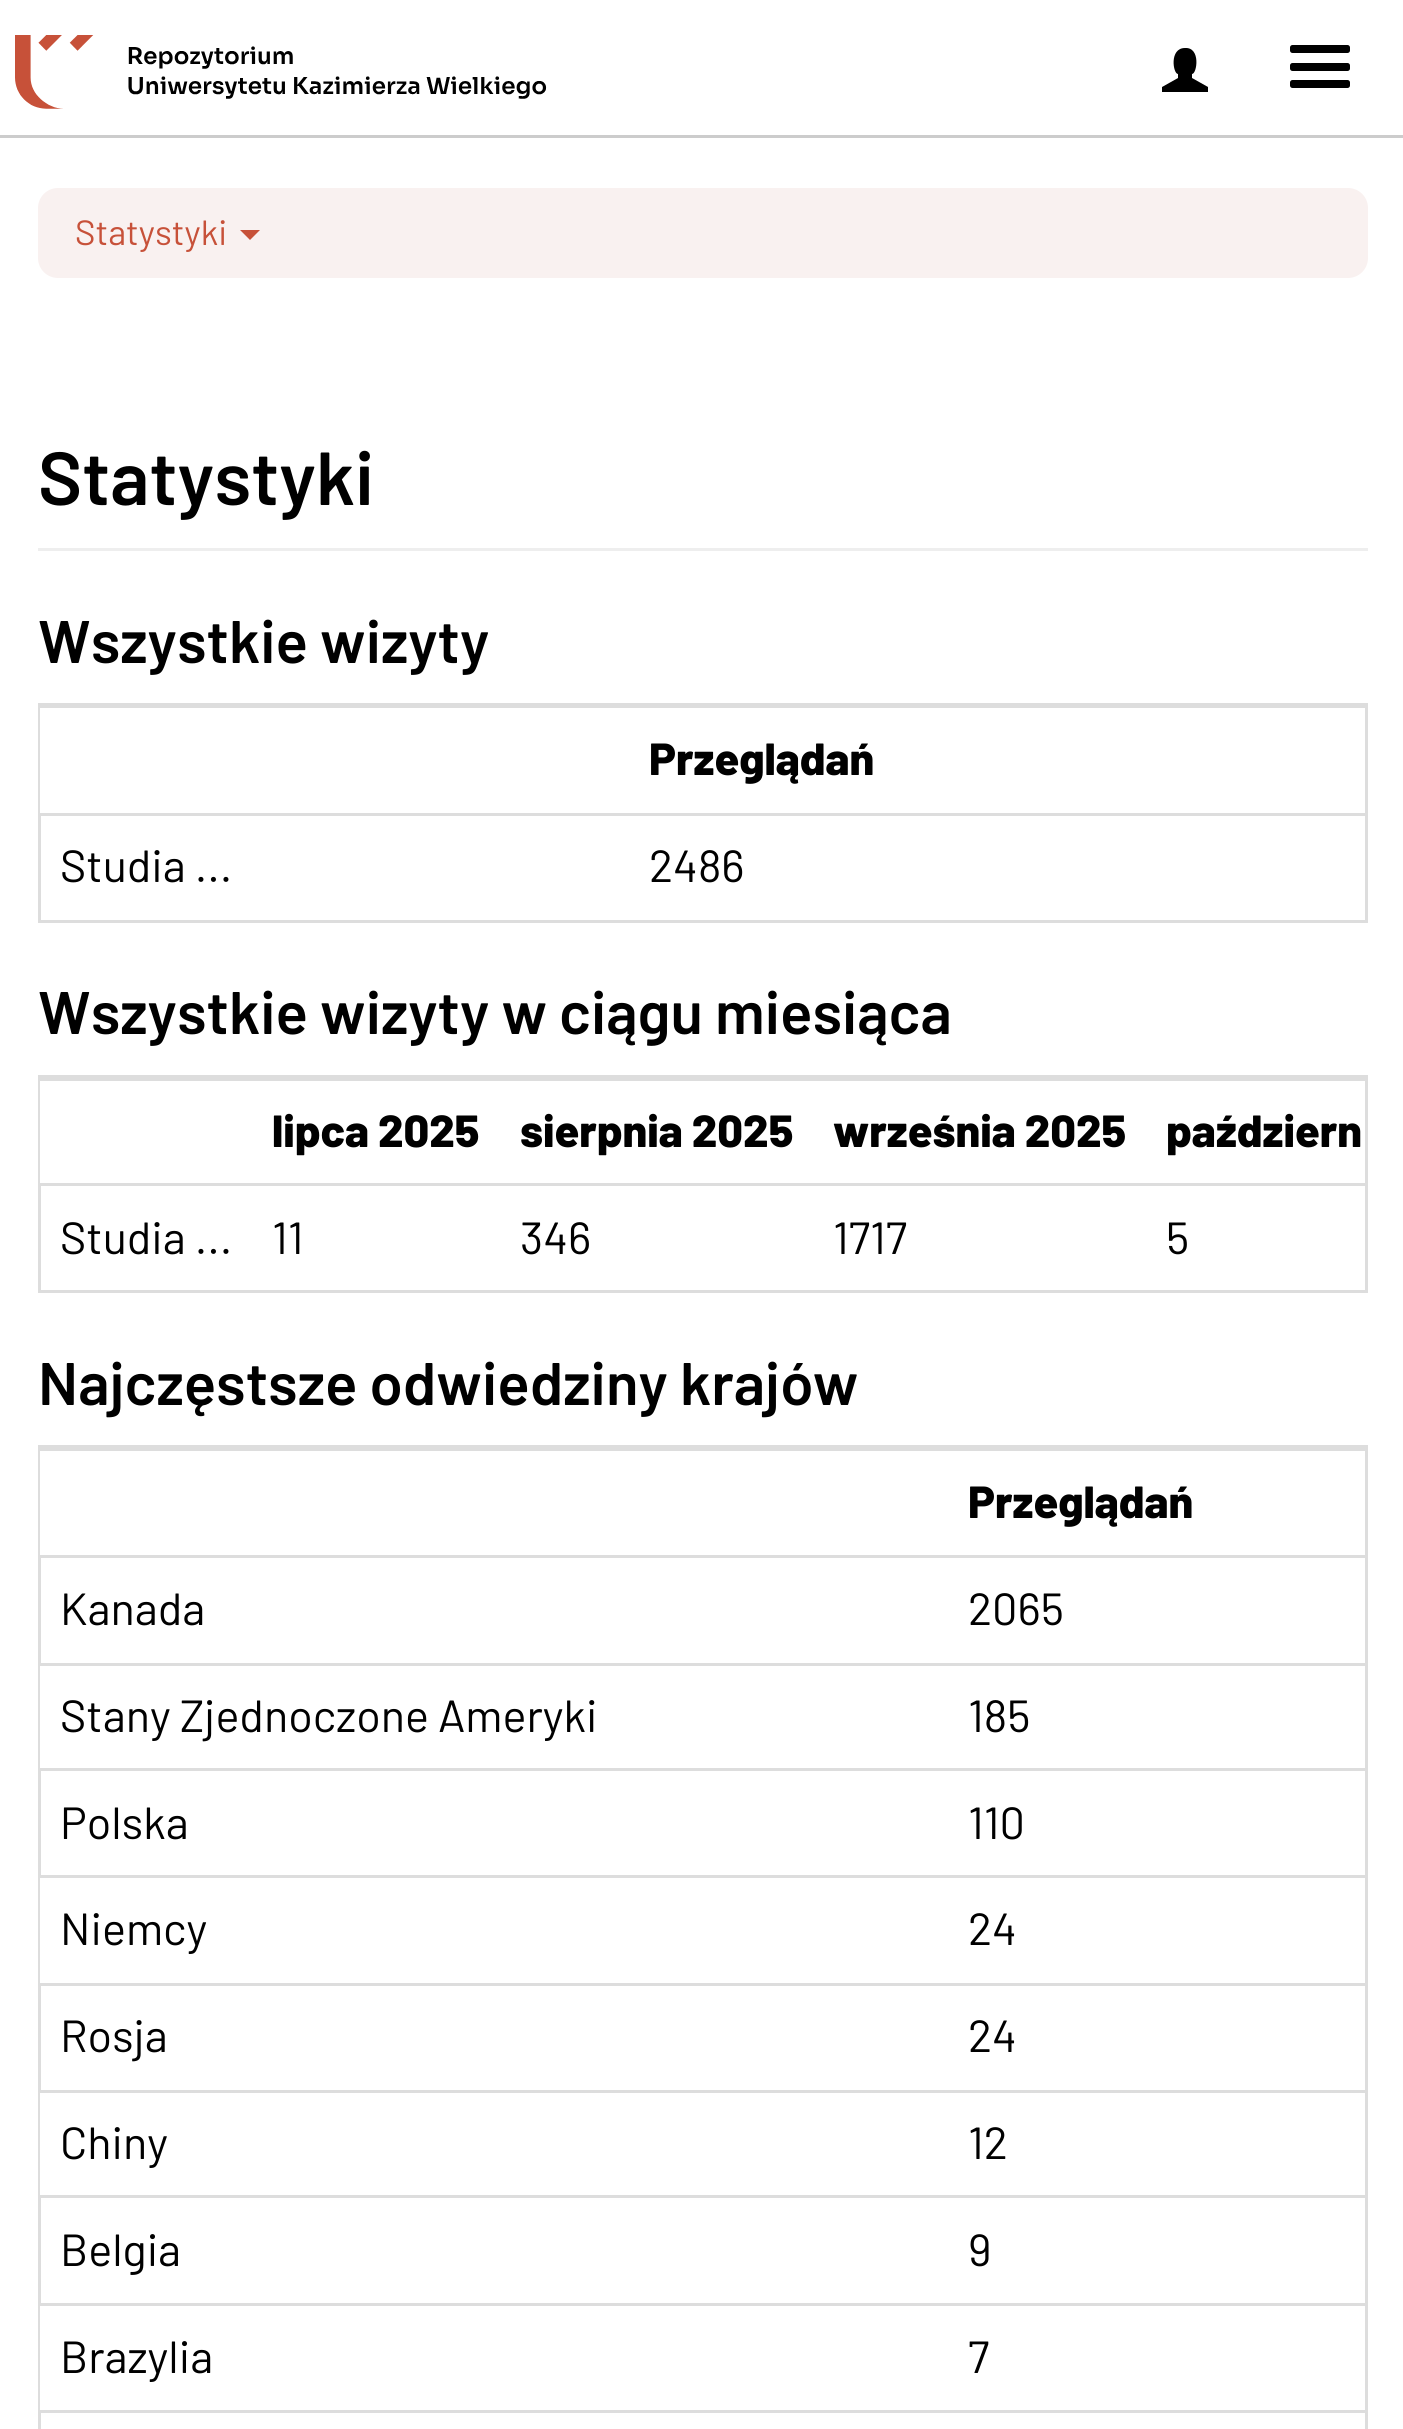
#include <cairo.h>
#include <math.h>
#include <stddef.h>


static void round_rect(cairo_t *cr, double x, double y, double w, double h, double r) {
    cairo_new_sub_path(cr);
    cairo_arc(cr, x + w - r, y + h - r, r, 0, M_PI / 2);
    cairo_arc(cr, x + r, y + h - r, r, M_PI / 2, M_PI);
    cairo_arc(cr, x + r, y + r, r, M_PI, 1.5 * M_PI);
    cairo_arc(cr, x + w - r, y + r, r, 1.5 * M_PI, 2 * M_PI);
    cairo_close_path(cr);
}

static void picture(cairo_t *cr, const char *path, double x, double y, double w, double h) {
    cairo_surface_t *image = cairo_image_surface_create_from_png(path);
    cairo_save(cr);
    cairo_set_source_surface(cr, image, x, y);
    cairo_rectangle(cr, x, y, w, h);
    cairo_fill(cr);
    cairo_restore(cr);
    cairo_surface_destroy(image);
}

int main(void) {
    cairo_surface_t *surface = cairo_image_surface_create(CAIRO_FORMAT_RGB24, 1403, 2429);
    cairo_t *cr = cairo_create(surface);
    cairo_font_options_t *options = cairo_font_options_create();
    cairo_font_options_set_hint_metrics(options, CAIRO_HINT_METRICS_OFF);
    cairo_font_options_set_hint_style(options, CAIRO_HINT_STYLE_NONE);
    cairo_set_font_options(cr, options);
    cairo_set_miter_limit(cr, 4);
    cairo_set_source_rgb(cr, 1, 1, 1);
    cairo_paint(cr);
    cairo_set_source_rgb(cr, 0.8, 0.8, 0.8);
    cairo_rectangle(cr, 0, 135, 1403, 3);
    cairo_fill(cr);
    picture(cr, "img1.png", 15, 35, 532, 74);
    cairo_set_source_rgb(cr, 0, 0, 0);
    cairo_new_path(cr);
    cairo_move_to(cr, 1162, 92);
    cairo_line_to(cr, 1162, 87);
    cairo_line_to(cr, 1178, 78);
    cairo_line_to(cr, 1178, 74);
    cairo_curve_to(cr, 1173, 74, 1169, 48, 1185, 48);
    cairo_curve_to(cr, 1201, 47, 1197, 74, 1192, 74);
    cairo_line_to(cr, 1192, 78);
    cairo_line_to(cr, 1208, 87);
    cairo_line_to(cr, 1208, 92);
    cairo_close_path(cr);
    cairo_fill(cr);
    round_rect(cr, 1290, 45, 60, 8, 2.5);
    cairo_fill(cr);
    round_rect(cr, 1290, 63, 60, 8, 2.5);
    cairo_fill(cr);
    round_rect(cr, 1290, 80, 60, 8, 2.5);
    cairo_fill(cr);
    cairo_set_source_rgb(cr, 0.973, 0.945, 0.941);
    round_rect(cr, 38, 188, 1330, 90, 20);
    cairo_fill(cr);
    cairo_select_font_face(cr, "Barlow", CAIRO_FONT_SLANT_NORMAL, CAIRO_FONT_WEIGHT_NORMAL);
    cairo_set_font_size(cr, 35);
    cairo_set_source_rgb(cr, 0.78, 0.318, 0.224);
    cairo_move_to(cr, 75, 245);
    cairo_show_text(cr, "Statystyki");
    cairo_new_path(cr);
    cairo_move_to(cr, 240, 230);
    cairo_line_to(cr, 260, 230);
    cairo_line_to(cr, 250, 240);
    cairo_close_path(cr);
    cairo_fill(cr);
    cairo_set_source_rgb(cr, 0.933, 0.933, 0.933);
    cairo_rectangle(cr, 38, 548, 1330, 3);
    cairo_fill(cr);
    cairo_select_font_face(cr, "Barlow SemiBold", CAIRO_FONT_SLANT_NORMAL, CAIRO_FONT_WEIGHT_NORMAL);
    cairo_set_font_size(cr, 75);
    cairo_set_source_rgb(cr, 0, 0, 0);
    cairo_move_to(cr, 38, 505);
    cairo_show_text(cr, "Statystyki");
    cairo_set_font_size(cr, 60);
    cairo_move_to(cr, 38, 663);
    cairo_show_text(cr, "Wszystkie wizyty");
    cairo_rectangle(cr, 39.5, 704.5, 1327, 217);
    cairo_set_source_rgb(cr, 0.867, 0.867, 0.867);
    cairo_set_line_width(cr, 3);
    cairo_stroke(cr);
    cairo_set_source_rgb(cr, 1, 1, 1);
    cairo_rectangle(cr, 40, 708, 1, 105);
    cairo_fill(cr);
    cairo_set_source_rgb(cr, 0.867, 0.867, 0.867);
    cairo_rectangle(cr, 40, 706, 1325, 2);
    cairo_fill(cr);
    cairo_select_font_face(cr, "Barlow ExtraBold", CAIRO_FONT_SLANT_NORMAL, CAIRO_FONT_WEIGHT_NORMAL);
    cairo_set_font_size(cr, 45);
    cairo_set_source_rgb(cr, 0, 0, 0);
    cairo_move_to(cr, 649, 775);
    cairo_show_text(cr, "Przeglądań");
    cairo_select_font_face(cr, "Barlow", CAIRO_FONT_SLANT_NORMAL, CAIRO_FONT_WEIGHT_NORMAL);
    cairo_move_to(cr, 60, 882);
    cairo_show_text(cr, "Studia ...");
    cairo_set_source_rgb(cr, 0.867, 0.867, 0.867);
    cairo_rectangle(cr, 40, 813, 1325, 3);
    cairo_fill(cr);
    cairo_set_source_rgb(cr, 0, 0, 0);
    cairo_move_to(cr, 649, 882);
    cairo_show_text(cr, "2486");
    cairo_select_font_face(cr, "Barlow SemiBold", CAIRO_FONT_SLANT_NORMAL, CAIRO_FONT_WEIGHT_NORMAL);
    cairo_set_font_size(cr, 60);
    cairo_move_to(cr, 38, 1034);
    cairo_show_text(cr, "Wszystkie wizyty w ciągu miesiąca");
    cairo_rectangle(cr, 39.5, 1076.5, 1327, 215);
    cairo_set_source_rgb(cr, 0.867, 0.867, 0.867);
    cairo_stroke(cr);
    cairo_set_source_rgb(cr, 1, 1, 1);
    cairo_rectangle(cr, 40, 1081, 1, 102);
    cairo_fill(cr);
    cairo_select_font_face(cr, "Barlow ExtraBold", CAIRO_FONT_SLANT_NORMAL, CAIRO_FONT_WEIGHT_NORMAL);
    cairo_set_font_size(cr, 45);
    cairo_set_source_rgb(cr, 0, 0, 0);
    cairo_move_to(cr, 272, 1147);
    cairo_show_text(cr, "lipca 2025");
    cairo_move_to(cr, 520, 1147);
    cairo_show_text(cr, "sierpnia 2025");
    cairo_move_to(cr, 833, 1147);
    cairo_show_text(cr, "września 2025");
    cairo_set_source_rgb(cr, 0.867, 0.867, 0.867);
    cairo_rectangle(cr, 40, 1078, 1325, 3);
    cairo_fill(cr);
    cairo_set_source_rgb(cr, 0, 0, 0);
    cairo_move_to(cr, 1166, 1147);
    cairo_show_text(cr, "październ");
    cairo_select_font_face(cr, "Barlow", CAIRO_FONT_SLANT_NORMAL, CAIRO_FONT_WEIGHT_NORMAL);
    cairo_move_to(cr, 60, 1254);
    cairo_show_text(cr, "Studia ...");
    cairo_move_to(cr, 272, 1254);
    cairo_show_text(cr, "11");
    cairo_move_to(cr, 520, 1254);
    cairo_show_text(cr, "346");
    cairo_move_to(cr, 833, 1254);
    cairo_show_text(cr, "1717");
    cairo_set_source_rgb(cr, 0.867, 0.867, 0.867);
    cairo_rectangle(cr, 40, 1183, 1325, 3);
    cairo_fill(cr);
    cairo_set_source_rgb(cr, 0, 0, 0);
    cairo_move_to(cr, 1166, 1254);
    cairo_show_text(cr, "5");
    cairo_select_font_face(cr, "Barlow SemiBold", CAIRO_FONT_SLANT_NORMAL, CAIRO_FONT_WEIGHT_NORMAL);
    cairo_set_font_size(cr, 60);
    cairo_move_to(cr, 38, 1405);
    cairo_show_text(cr, "Najczęstsze odwiedziny krajów");
    cairo_rectangle(cr, 39.5, 1446.5, 1327, 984);
    cairo_set_source_rgb(cr, 0.867, 0.867, 0.867);
    cairo_stroke(cr);
    cairo_set_source_rgb(cr, 1, 1, 1);
    cairo_rectangle(cr, 40, 1451, 1, 104);
    cairo_fill(cr);
    cairo_set_source_rgb(cr, 0.867, 0.867, 0.867);
    cairo_rectangle(cr, 40, 1448, 1325, 3);
    cairo_fill(cr);
    cairo_select_font_face(cr, "Barlow ExtraBold", CAIRO_FONT_SLANT_NORMAL, CAIRO_FONT_WEIGHT_NORMAL);
    cairo_set_font_size(cr, 45);
    cairo_set_source_rgb(cr, 0, 0, 0);
    cairo_move_to(cr, 968, 1518);
    cairo_show_text(cr, "Przeglądań");
    cairo_select_font_face(cr, "Barlow", CAIRO_FONT_SLANT_NORMAL, CAIRO_FONT_WEIGHT_NORMAL);
    cairo_move_to(cr, 60, 1625);
    cairo_show_text(cr, "Kanada");
    cairo_set_source_rgb(cr, 0.867, 0.867, 0.867);
    cairo_rectangle(cr, 40, 1555, 1325, 3);
    cairo_fill(cr);
    cairo_set_source_rgb(cr, 0, 0, 0);
    cairo_move_to(cr, 968, 1625);
    cairo_show_text(cr, "2065");
    cairo_set_source_rgb(cr, 1, 1, 1);
    cairo_rectangle(cr, 40, 1666, 1, 102);
    cairo_fill(cr);
    cairo_set_source_rgb(cr, 0, 0, 0);
    cairo_move_to(cr, 60, 1732);
    cairo_show_text(cr, "Stany Zjednoczone Ameryki");
    cairo_set_source_rgb(cr, 0.867, 0.867, 0.867);
    cairo_rectangle(cr, 40, 1663, 1325, 3);
    cairo_fill(cr);
    cairo_set_source_rgb(cr, 0, 0, 0);
    cairo_move_to(cr, 968, 1732);
    cairo_show_text(cr, "185");
    cairo_move_to(cr, 60, 1839);
    cairo_show_text(cr, "Polska");
    cairo_set_source_rgb(cr, 0.867, 0.867, 0.867);
    cairo_rectangle(cr, 40, 1768, 1325, 3);
    cairo_fill(cr);
    cairo_set_source_rgb(cr, 0, 0, 0);
    cairo_move_to(cr, 968, 1839);
    cairo_show_text(cr, "110");
    cairo_set_source_rgb(cr, 1, 1, 1);
    cairo_rectangle(cr, 40, 1878, 1, 105);
    cairo_fill(cr);
    cairo_set_source_rgb(cr, 0, 0, 0);
    cairo_move_to(cr, 60, 1945);
    cairo_show_text(cr, "Niemcy");
    cairo_set_source_rgb(cr, 0.867, 0.867, 0.867);
    cairo_rectangle(cr, 40, 1875, 1325, 3);
    cairo_fill(cr);
    cairo_set_source_rgb(cr, 0, 0, 0);
    cairo_move_to(cr, 968, 1945);
    cairo_show_text(cr, "24");
    cairo_move_to(cr, 60, 2052);
    cairo_show_text(cr, "Rosja");
    cairo_set_source_rgb(cr, 0.867, 0.867, 0.867);
    cairo_rectangle(cr, 40, 1983, 1325, 3);
    cairo_fill(cr);
    cairo_set_source_rgb(cr, 0, 0, 0);
    cairo_move_to(cr, 968, 2052);
    cairo_show_text(cr, "24");
    cairo_set_source_rgb(cr, 1, 1, 1);
    cairo_rectangle(cr, 40, 2093, 1, 102);
    cairo_fill(cr);
    cairo_set_source_rgb(cr, 0, 0, 0);
    cairo_move_to(cr, 60, 2159);
    cairo_show_text(cr, "Chiny");
    cairo_set_source_rgb(cr, 0.867, 0.867, 0.867);
    cairo_rectangle(cr, 40, 2090, 1325, 3);
    cairo_fill(cr);
    cairo_set_source_rgb(cr, 0, 0, 0);
    cairo_move_to(cr, 968, 2159);
    cairo_show_text(cr, "12");
    cairo_move_to(cr, 60, 2266);
    cairo_show_text(cr, "Belgia");
    cairo_set_source_rgb(cr, 0.867, 0.867, 0.867);
    cairo_rectangle(cr, 40, 2195, 1325, 3);
    cairo_fill(cr);
    cairo_set_source_rgb(cr, 0, 0, 0);
    cairo_move_to(cr, 968, 2266);
    cairo_show_text(cr, "9");
    cairo_set_source_rgb(cr, 1, 1, 1);
    cairo_rectangle(cr, 40, 2306, 1, 104);
    cairo_fill(cr);
    cairo_set_source_rgb(cr, 0, 0, 0);
    cairo_move_to(cr, 60, 2373);
    cairo_show_text(cr, "Brazylia");
    cairo_set_source_rgb(cr, 0.867, 0.867, 0.867);
    cairo_rectangle(cr, 40, 2303, 1325, 3);
    cairo_fill(cr);
    cairo_set_source_rgb(cr, 0, 0, 0);
    cairo_move_to(cr, 968, 2373);
    cairo_show_text(cr, "7");
    cairo_set_source_rgb(cr, 0.867, 0.867, 0.867);
    cairo_rectangle(cr, 40, 2410, 1325, 3);
    cairo_fill(cr);
    cairo_surface_write_to_png(surface, "page.png");
    cairo_font_options_destroy(options);
    cairo_destroy(cr);
    cairo_surface_destroy(surface);
    return 0;
}
